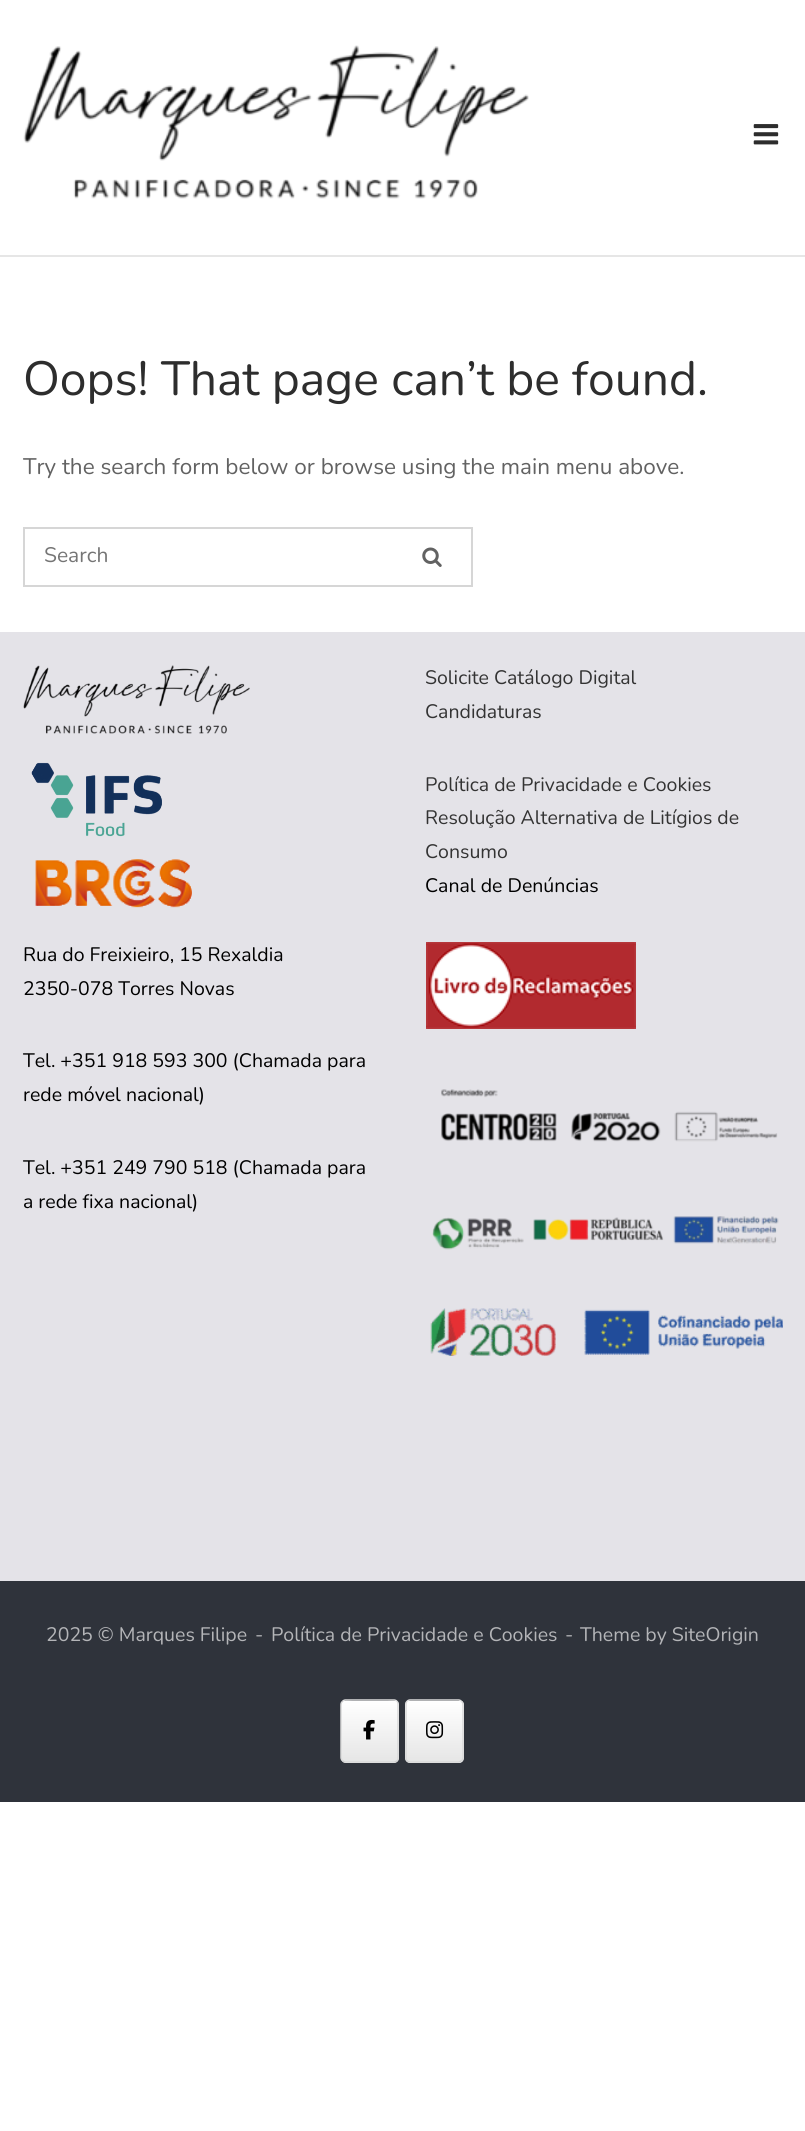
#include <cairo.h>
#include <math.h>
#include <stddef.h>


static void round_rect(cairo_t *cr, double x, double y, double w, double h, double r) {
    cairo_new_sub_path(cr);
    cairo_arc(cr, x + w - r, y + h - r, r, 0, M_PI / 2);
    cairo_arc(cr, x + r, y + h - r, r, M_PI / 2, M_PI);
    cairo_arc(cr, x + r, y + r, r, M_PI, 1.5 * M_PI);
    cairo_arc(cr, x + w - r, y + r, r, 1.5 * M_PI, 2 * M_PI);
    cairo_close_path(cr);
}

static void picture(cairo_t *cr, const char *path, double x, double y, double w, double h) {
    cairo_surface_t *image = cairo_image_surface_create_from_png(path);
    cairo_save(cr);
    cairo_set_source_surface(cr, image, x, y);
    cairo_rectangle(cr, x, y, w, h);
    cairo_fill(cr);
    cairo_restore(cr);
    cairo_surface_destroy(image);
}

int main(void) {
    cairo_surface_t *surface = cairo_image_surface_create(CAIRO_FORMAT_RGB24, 805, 2131);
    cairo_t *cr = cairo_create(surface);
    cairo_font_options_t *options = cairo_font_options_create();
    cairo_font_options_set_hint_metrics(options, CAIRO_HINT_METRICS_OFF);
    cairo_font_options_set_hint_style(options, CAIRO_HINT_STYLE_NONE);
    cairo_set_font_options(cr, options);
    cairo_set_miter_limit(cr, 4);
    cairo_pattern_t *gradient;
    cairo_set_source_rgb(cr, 1, 1, 1);
    cairo_paint(cr);
    cairo_set_source_rgb(cr, 0.902, 0.902, 0.902);
    cairo_rectangle(cr, 0, 255, 805, 2);
    cairo_fill(cr);
    picture(cr, "img1.png", 23, 45, 506, 154);
    picture(cr, "img2.png", 753, 124, 26, 21);
    cairo_select_font_face(cr, "Nunito ExtraLight", CAIRO_FONT_SLANT_NORMAL, CAIRO_FONT_WEIGHT_NORMAL);
    cairo_set_font_size(cr, 48);
    cairo_set_source_rgb(cr, 0.176, 0.176, 0.176);
    cairo_move_to(cr, 23, 395);
    cairo_show_text(cr, "Oops! That page can’t be found.");
    cairo_set_font_size(cr, 22.5);
    cairo_set_source_rgb(cr, 0.384, 0.384, 0.384);
    cairo_move_to(cr, 23, 474);
    cairo_show_text(cr, "Try the search form below or browse using the main menu above.");
    cairo_rectangle(cr, 24, 528, 448, 58);
    cairo_set_source_rgb(cr, 0.839, 0.839, 0.839);
    cairo_stroke(cr);
    cairo_set_font_size(cr, 21);
    cairo_set_source_rgb(cr, 0.459, 0.459, 0.459);
    cairo_move_to(cr, 44, 562);
    cairo_show_text(cr, "Search");
    picture(cr, "img3.png", 422, 547, 20, 20);
    cairo_set_source_rgb(cr, 0.894, 0.89, 0.91);
    cairo_rectangle(cr, 0, 632, 805, 949);
    cairo_fill(cr);
    cairo_set_font_size(cr, 19.5);
    cairo_set_source_rgb(cr, 0.2, 0.2, 0.2);
    cairo_move_to(cr, 425, 684);
    cairo_show_text(cr, "Solicite Catálogo Digital");
    cairo_move_to(cr, 425, 718);
    cairo_show_text(cr, "Candidaturas");
    cairo_move_to(cr, 425, 791);
    cairo_show_text(cr, "Política de Privacidade e Cookies");
    cairo_move_to(cr, 425, 824);
    cairo_show_text(cr, "Resolução Alternativa de Litígios de");
    cairo_move_to(cr, 425, 858);
    cairo_show_text(cr, "Consumo");
    cairo_set_source_rgb(cr, 0, 0, 0);
    cairo_move_to(cr, 425, 892);
    cairo_show_text(cr, "Canal de Denúncias");
    picture(cr, "img4.png", 426, 942, 210, 87);
    picture(cr, "img5.png", 441, 1089, 337, 53);
    picture(cr, "img6.png", 432, 1216, 347, 34);
    picture(cr, "img7.png", 430, 1308, 353, 48);
    picture(cr, "img8.png", 23, 665, 227, 69);
    picture(cr, "img9.png", 31, 762, 131, 75);
    picture(cr, "img10.png", 35, 859, 157, 49);
    cairo_move_to(cr, 23, 961);
    cairo_show_text(cr, "Rua do Freixieiro, 15 Rexaldia");
    cairo_move_to(cr, 23, 995);
    cairo_show_text(cr, "2350-078 Torres Novas");
    cairo_move_to(cr, 23, 1067);
    cairo_show_text(cr, "Tel. +351 918 593 300 (Chamada para");
    cairo_move_to(cr, 23, 1101);
    cairo_show_text(cr, "rede móvel nacional)");
    cairo_move_to(cr, 23, 1174);
    cairo_show_text(cr, "Tel. +351 249 790 518 (Chamada para");
    cairo_move_to(cr, 23, 1208);
    cairo_show_text(cr, "a rede fixa nacional)");
    cairo_set_source_rgb(cr, 0.184, 0.2, 0.231);
    cairo_rectangle(cr, 0, 1581, 805, 221);
    cairo_fill(cr);
    cairo_set_source_rgb(cr, 0.706, 0.71, 0.722);
    cairo_move_to(cr, 46, 1641);
    cairo_show_text(cr, "2025 © Marques Filipe");
    cairo_move_to(cr, 255, 1641);
    cairo_show_text(cr, "-");
    cairo_move_to(cr, 271, 1641);
    cairo_show_text(cr, "Política de Privacidade e Cookies");
    cairo_move_to(cr, 565, 1641);
    cairo_show_text(cr, "-");
    cairo_move_to(cr, 580, 1641);
    cairo_show_text(cr, "Theme by SiteOrigin");
    cairo_save(cr);
    round_rect(cr, 341, 1700, 58, 63, 5);
    cairo_clip(cr);
    gradient = cairo_pattern_create_linear(342, 1761, 342, 1701);
    cairo_pattern_add_color_stop_rgba(gradient, 0, 0.902, 0.902, 0.902, 1);
    cairo_pattern_add_color_stop_rgba(gradient, 1, 1, 1, 1, 1);
    cairo_set_source(cr, gradient);
    cairo_pattern_destroy(gradient);
    cairo_rectangle(cr, 341, 1701, 58, 60);
    cairo_fill(cr);
    gradient = cairo_pattern_create_linear(342, 1821, 342, 1761);
    cairo_pattern_add_color_stop_rgba(gradient, 0, 0.902, 0.902, 0.902, 1);
    cairo_pattern_add_color_stop_rgba(gradient, 1, 1, 1, 1, 1);
    cairo_set_source(cr, gradient);
    cairo_pattern_destroy(gradient);
    cairo_rectangle(cr, 341, 1761, 58, 2);
    cairo_fill(cr);
    cairo_restore(cr);
    cairo_set_source_rgb(cr, 1, 1, 1);
    cairo_new_path(cr);
    cairo_move_to(cr, 345, 1702);
    cairo_line_to(cr, 394, 1702);
    cairo_curve_to(cr, 396, 1702, 398, 1704, 398, 1706);
    cairo_curve_to(cr, 398, 1699, 394, 1701, 387, 1701);
    cairo_line_to(cr, 353, 1701);
    cairo_curve_to(cr, 346, 1701, 342, 1699, 342, 1706);
    cairo_curve_to(cr, 342, 1704, 344, 1702, 345, 1702);
    cairo_close_path(cr);
    cairo_fill(cr);
    cairo_new_path(cr);
    cairo_move_to(cr, 342.5, 1701.5);
    cairo_curve_to(cr, 343, 1700.5, 344.5, 1700, 345.5, 1700);
    cairo_line_to(cr, 394, 1700);
    cairo_curve_to(cr, 395, 1700, 396.5, 1700.5, 397, 1701.5);
    cairo_set_source_rgb(cr, 0.871, 0.871, 0.871);
    cairo_set_line_width(cr, 1.5);
    cairo_stroke(cr);
    cairo_new_path(cr);
    cairo_move_to(cr, 397, 1701.5);
    cairo_curve_to(cr, 398, 1702, 398, 1703.5, 398, 1704.5);
    cairo_line_to(cr, 398, 1757.5);
    cairo_curve_to(cr, 398, 1758.5, 398, 1760, 397, 1760.5);
    cairo_set_source_rgb(cr, 0.851, 0.851, 0.851);
    cairo_stroke(cr);
    cairo_new_path(cr);
    cairo_move_to(cr, 397, 1760.5);
    cairo_curve_to(cr, 396.5, 1761.5, 395, 1762, 394, 1762);
    cairo_line_to(cr, 345.5, 1762);
    cairo_curve_to(cr, 344.5, 1762, 343, 1761.5, 342.5, 1760.5);
    cairo_set_source_rgb(cr, 0.82, 0.82, 0.82);
    cairo_stroke(cr);
    cairo_new_path(cr);
    cairo_move_to(cr, 342.5, 1760.5);
    cairo_curve_to(cr, 341.5, 1760, 341, 1758.5, 341, 1757.5);
    cairo_line_to(cr, 341, 1704.5);
    cairo_curve_to(cr, 341, 1703.5, 341.5, 1702, 342.5, 1701.5);
    cairo_set_source_rgb(cr, 0.851, 0.851, 0.851);
    cairo_stroke(cr);
    picture(cr, "img11.png", 363, 1719, 12, 21);
    cairo_save(cr);
    round_rect(cr, 405, 1700, 59, 63, 5);
    cairo_clip(cr);
    gradient = cairo_pattern_create_linear(407, 1761, 407, 1701);
    cairo_pattern_add_color_stop_rgba(gradient, 0, 0.902, 0.902, 0.902, 1);
    cairo_pattern_add_color_stop_rgba(gradient, 1, 1, 1, 1, 1);
    cairo_set_source(cr, gradient);
    cairo_pattern_destroy(gradient);
    cairo_rectangle(cr, 405, 1701, 59, 60);
    cairo_fill(cr);
    gradient = cairo_pattern_create_linear(407, 1821, 407, 1761);
    cairo_pattern_add_color_stop_rgba(gradient, 0, 0.902, 0.902, 0.902, 1);
    cairo_pattern_add_color_stop_rgba(gradient, 1, 1, 1, 1, 1);
    cairo_set_source(cr, gradient);
    cairo_pattern_destroy(gradient);
    cairo_rectangle(cr, 405, 1761, 59, 2);
    cairo_fill(cr);
    cairo_restore(cr);
    cairo_new_path(cr);
    cairo_move_to(cr, 407, 1701.5);
    cairo_curve_to(cr, 407.5, 1700.5, 409, 1700, 410, 1700);
    cairo_line_to(cr, 458.5, 1700);
    cairo_curve_to(cr, 459.5, 1700, 461, 1700.5, 461.5, 1701.5);
    cairo_set_source_rgb(cr, 0.871, 0.871, 0.871);
    cairo_stroke(cr);
    cairo_new_path(cr);
    cairo_move_to(cr, 461.5, 1701.5);
    cairo_curve_to(cr, 462.5, 1702, 463, 1703.5, 463, 1704.5);
    cairo_line_to(cr, 463, 1757.5);
    cairo_curve_to(cr, 463, 1758.5, 462.5, 1760, 461.5, 1760.5);
    cairo_set_source_rgb(cr, 0.851, 0.851, 0.851);
    cairo_stroke(cr);
    cairo_new_path(cr);
    cairo_move_to(cr, 461.5, 1760.5);
    cairo_curve_to(cr, 461, 1761.5, 459.5, 1762, 458.5, 1762);
    cairo_line_to(cr, 410, 1762);
    cairo_curve_to(cr, 409, 1762, 407.5, 1761.5, 407, 1760.5);
    cairo_set_source_rgb(cr, 0.82, 0.82, 0.82);
    cairo_stroke(cr);
    cairo_new_path(cr);
    cairo_move_to(cr, 407, 1760.5);
    cairo_curve_to(cr, 406, 1760, 406, 1758.5, 406, 1757.5);
    cairo_line_to(cr, 406, 1704.5);
    cairo_curve_to(cr, 406, 1703.5, 406, 1702, 407, 1701.5);
    cairo_set_source_rgb(cr, 0.851, 0.851, 0.851);
    cairo_stroke(cr);
    picture(cr, "img12.png", 426, 1721, 18, 18);
    cairo_surface_write_to_png(surface, "page.png");
    cairo_font_options_destroy(options);
    cairo_destroy(cr);
    cairo_surface_destroy(surface);
    return 0;
}
